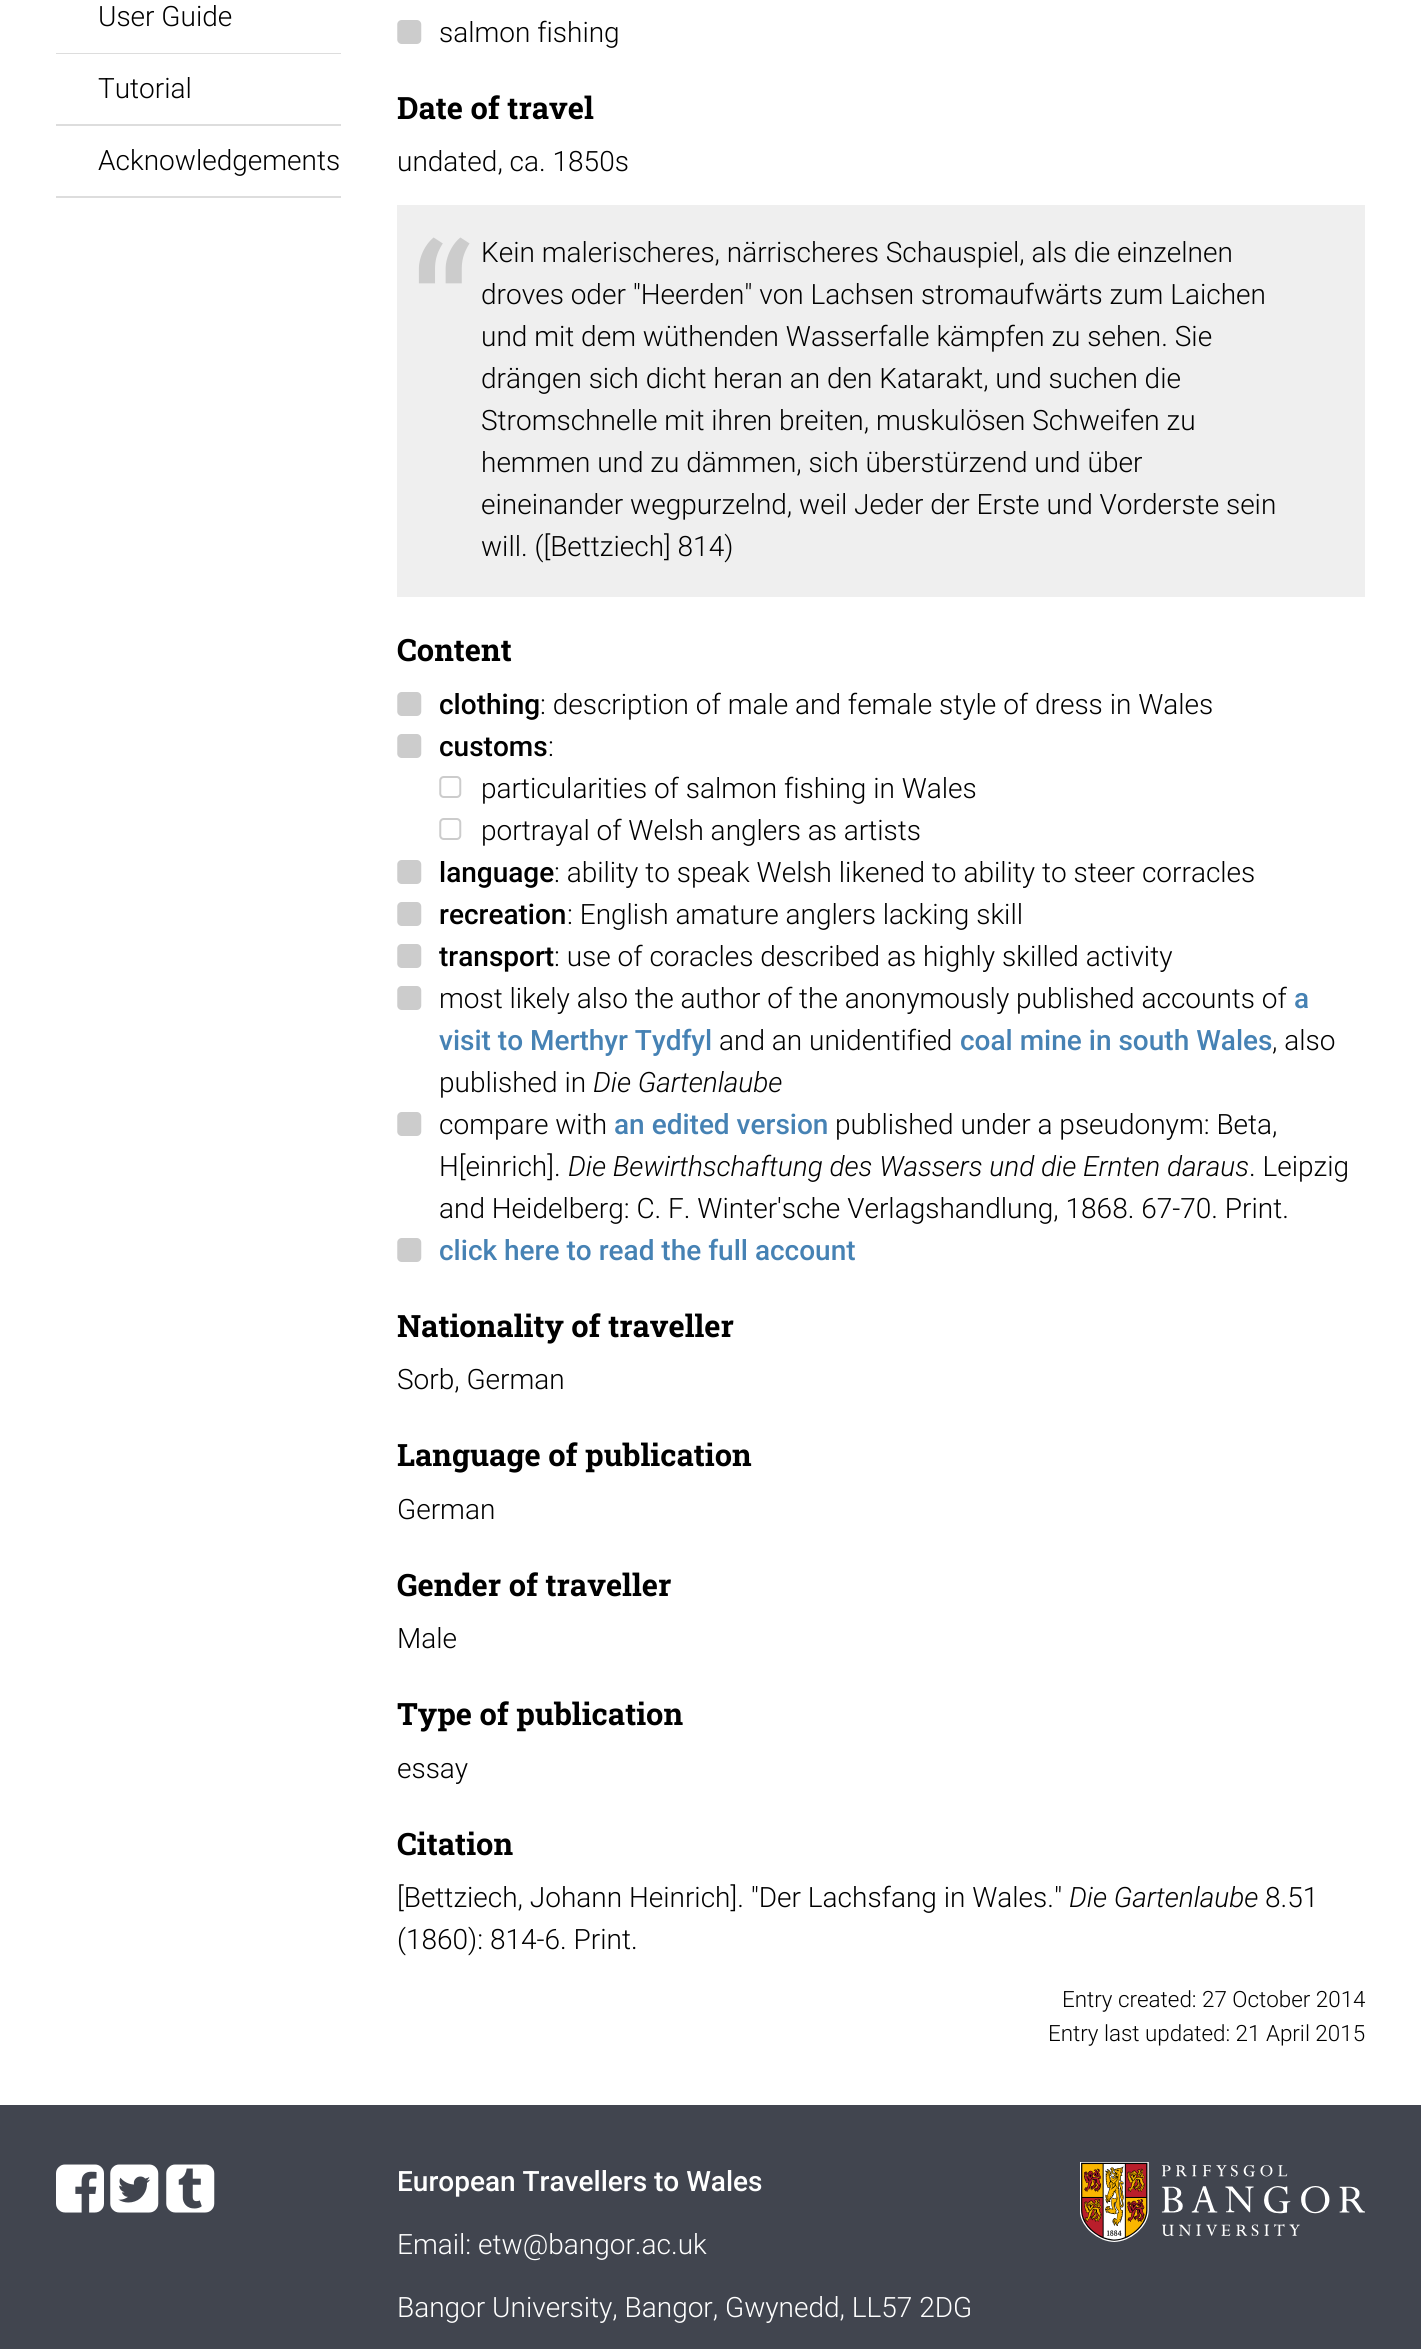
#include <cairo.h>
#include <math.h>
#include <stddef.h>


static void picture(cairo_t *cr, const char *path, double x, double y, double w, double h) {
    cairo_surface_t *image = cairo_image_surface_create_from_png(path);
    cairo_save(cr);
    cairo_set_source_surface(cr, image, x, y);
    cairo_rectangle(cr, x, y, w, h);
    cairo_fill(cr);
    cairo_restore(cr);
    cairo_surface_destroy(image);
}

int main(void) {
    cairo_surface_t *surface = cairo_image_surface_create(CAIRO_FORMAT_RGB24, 1421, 2349);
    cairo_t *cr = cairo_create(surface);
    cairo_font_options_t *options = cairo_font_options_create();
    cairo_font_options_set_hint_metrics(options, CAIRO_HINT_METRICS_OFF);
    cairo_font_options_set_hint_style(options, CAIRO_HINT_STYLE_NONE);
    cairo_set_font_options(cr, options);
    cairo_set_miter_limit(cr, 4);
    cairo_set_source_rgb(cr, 1, 1, 1);
    cairo_paint(cr);
    cairo_set_source_rgb(cr, 0.867, 0.867, 0.867);
    cairo_rectangle(cr, 56, 53, 285, 1);
    cairo_fill(cr);
    cairo_select_font_face(cr, "Roboto Light", CAIRO_FONT_SLANT_NORMAL, CAIRO_FONT_WEIGHT_NORMAL);
    cairo_set_font_size(cr, 28);
    cairo_set_source_rgb(cr, 0, 0, 0);
    cairo_move_to(cr, 98, 26);
    cairo_show_text(cr, "User Guide");
    cairo_set_source_rgb(cr, 0.867, 0.867, 0.867);
    cairo_rectangle(cr, 56, 124, 285, 2);
    cairo_fill(cr);
    cairo_set_source_rgb(cr, 0, 0, 0);
    cairo_move_to(cr, 98, 98);
    cairo_show_text(cr, "Tutorial");
    cairo_set_source_rgb(cr, 0.867, 0.867, 0.867);
    cairo_rectangle(cr, 56, 196, 285, 2);
    cairo_fill(cr);
    cairo_set_source_rgb(cr, 0, 0, 0);
    cairo_move_to(cr, 98, 170);
    cairo_show_text(cr, "Acknowledgements");
    picture(cr, "img1.png", 397, 20, 25, 24);
    cairo_move_to(cr, 439, 42);
    cairo_show_text(cr, "salmon fishing");
    cairo_select_font_face(cr, "Roboto Slab", CAIRO_FONT_SLANT_NORMAL, CAIRO_FONT_WEIGHT_BOLD);
    cairo_set_font_size(cr, 30.75);
    cairo_move_to(cr, 397, 119);
    cairo_show_text(cr, "Date of travel");
    cairo_select_font_face(cr, "Roboto Light", CAIRO_FONT_SLANT_NORMAL, CAIRO_FONT_WEIGHT_NORMAL);
    cairo_set_font_size(cr, 28);
    cairo_move_to(cr, 397, 171);
    cairo_show_text(cr, "undated, ca. 1850s");
    cairo_set_source_rgb(cr, 0.937, 0.937, 0.937);
    cairo_rectangle(cr, 397, 205, 968, 392);
    cairo_fill(cr);
    cairo_select_font_face(cr, "Roboto Slab", CAIRO_FONT_SLANT_NORMAL, CAIRO_FONT_WEIGHT_NORMAL);
    cairo_set_font_size(cr, 168);
    cairo_set_source_rgb(cr, 0.8, 0.8, 0.8);
    cairo_move_to(cr, 411, 367);
    cairo_show_text(cr, "“");
    cairo_select_font_face(cr, "Roboto Light", CAIRO_FONT_SLANT_NORMAL, CAIRO_FONT_WEIGHT_NORMAL);
    cairo_set_font_size(cr, 28);
    cairo_set_source_rgb(cr, 0, 0, 0);
    cairo_move_to(cr, 481, 262);
    cairo_show_text(cr, "Kein malerischeres, närrischeres Schauspiel, als die einzelnen");
    cairo_move_to(cr, 481, 304);
    cairo_show_text(cr, "droves oder \"Heerden\" von Lachsen stromaufwärts zum Laichen");
    cairo_move_to(cr, 481, 346);
    cairo_show_text(cr, "und mit dem wüthenden Wasserfalle kämpfen zu sehen. Sie");
    cairo_move_to(cr, 481, 388);
    cairo_show_text(cr, "drängen sich dicht heran an den Katarakt, und suchen die");
    cairo_move_to(cr, 481, 430);
    cairo_show_text(cr, "Stromschnelle mit ihren breiten, muskulösen Schweifen zu");
    cairo_move_to(cr, 481, 472);
    cairo_show_text(cr, "hemmen und zu dämmen, sich überstürzend und über");
    cairo_move_to(cr, 481, 514);
    cairo_show_text(cr, "eineinander wegpurzelnd, weil Jeder der Erste und Vorderste sein");
    cairo_move_to(cr, 481, 556);
    cairo_show_text(cr, "will. ([Bettziech] 814)");
    cairo_select_font_face(cr, "Roboto Slab", CAIRO_FONT_SLANT_NORMAL, CAIRO_FONT_WEIGHT_BOLD);
    cairo_set_font_size(cr, 30.75);
    cairo_move_to(cr, 397, 661);
    cairo_show_text(cr, "Content");
    picture(cr, "img1.png", 397, 692, 25, 24);
    cairo_select_font_face(cr, "Roboto Medium", CAIRO_FONT_SLANT_NORMAL, CAIRO_FONT_WEIGHT_NORMAL);
    cairo_set_font_size(cr, 28);
    cairo_move_to(cr, 439, 714);
    cairo_show_text(cr, "clothing");
    cairo_select_font_face(cr, "Roboto Light", CAIRO_FONT_SLANT_NORMAL, CAIRO_FONT_WEIGHT_NORMAL);
    cairo_move_to(cr, 540, 714);
    cairo_show_text(cr, ": description of male and female style of dress in Wales");
    picture(cr, "img1.png", 397, 734, 25, 24);
    cairo_select_font_face(cr, "Roboto Medium", CAIRO_FONT_SLANT_NORMAL, CAIRO_FONT_WEIGHT_NORMAL);
    cairo_move_to(cr, 439, 756);
    cairo_show_text(cr, "customs");
    cairo_select_font_face(cr, "Roboto Light", CAIRO_FONT_SLANT_NORMAL, CAIRO_FONT_WEIGHT_NORMAL);
    cairo_move_to(cr, 548, 756);
    cairo_show_text(cr, ":");
    picture(cr, "img2.png", 439, 776, 23, 22);
    cairo_move_to(cr, 481, 798);
    cairo_show_text(cr, "particularities of salmon fishing in Wales");
    picture(cr, "img2.png", 439, 818, 23, 22);
    cairo_move_to(cr, 481, 840);
    cairo_show_text(cr, "portrayal of Welsh anglers as artists");
    picture(cr, "img1.png", 397, 860, 25, 24);
    cairo_select_font_face(cr, "Roboto Medium", CAIRO_FONT_SLANT_NORMAL, CAIRO_FONT_WEIGHT_NORMAL);
    cairo_move_to(cr, 439, 882);
    cairo_show_text(cr, "language");
    cairo_select_font_face(cr, "Roboto Light", CAIRO_FONT_SLANT_NORMAL, CAIRO_FONT_WEIGHT_NORMAL);
    cairo_move_to(cr, 554, 882);
    cairo_show_text(cr, ": ability to speak Welsh likened to ability to steer corracles");
    picture(cr, "img1.png", 397, 902, 25, 24);
    cairo_select_font_face(cr, "Roboto Medium", CAIRO_FONT_SLANT_NORMAL, CAIRO_FONT_WEIGHT_NORMAL);
    cairo_move_to(cr, 439, 924);
    cairo_show_text(cr, "recreation");
    cairo_select_font_face(cr, "Roboto Light", CAIRO_FONT_SLANT_NORMAL, CAIRO_FONT_WEIGHT_NORMAL);
    cairo_move_to(cr, 567, 924);
    cairo_show_text(cr, ": English amature anglers lacking skill");
    picture(cr, "img1.png", 397, 944, 25, 24);
    cairo_select_font_face(cr, "Roboto Medium", CAIRO_FONT_SLANT_NORMAL, CAIRO_FONT_WEIGHT_NORMAL);
    cairo_move_to(cr, 439, 966);
    cairo_show_text(cr, "transport");
    cairo_select_font_face(cr, "Roboto Light", CAIRO_FONT_SLANT_NORMAL, CAIRO_FONT_WEIGHT_NORMAL);
    cairo_move_to(cr, 554, 966);
    cairo_show_text(cr, ": use of coracles described as highly skilled activity");
    picture(cr, "img1.png", 397, 986, 25, 24);
    cairo_move_to(cr, 439, 1008);
    cairo_show_text(cr, "most likely also the author of the anonymously published accounts of");
    cairo_select_font_face(cr, "Roboto Medium", CAIRO_FONT_SLANT_NORMAL, CAIRO_FONT_WEIGHT_NORMAL);
    cairo_set_source_rgb(cr, 0.275, 0.51, 0.706);
    cairo_move_to(cr, 1294, 1008);
    cairo_show_text(cr, "a");
    cairo_move_to(cr, 439, 1050);
    cairo_show_text(cr, "visit to Merthyr Tydfyl");
    cairo_select_font_face(cr, "Roboto Light", CAIRO_FONT_SLANT_NORMAL, CAIRO_FONT_WEIGHT_NORMAL);
    cairo_set_source_rgb(cr, 0, 0, 0);
    cairo_move_to(cr, 719, 1050);
    cairo_show_text(cr, "and an unidentified");
    cairo_select_font_face(cr, "Roboto Medium", CAIRO_FONT_SLANT_NORMAL, CAIRO_FONT_WEIGHT_NORMAL);
    cairo_set_source_rgb(cr, 0.275, 0.51, 0.706);
    cairo_move_to(cr, 960, 1050);
    cairo_show_text(cr, "coal mine in south Wales");
    cairo_select_font_face(cr, "Roboto Light", CAIRO_FONT_SLANT_NORMAL, CAIRO_FONT_WEIGHT_NORMAL);
    cairo_set_source_rgb(cr, 0, 0, 0);
    cairo_move_to(cr, 1272, 1050);
    cairo_show_text(cr, ", also");
    cairo_move_to(cr, 439, 1092);
    cairo_show_text(cr, "published in");
    cairo_select_font_face(cr, "Roboto Light", CAIRO_FONT_SLANT_ITALIC, CAIRO_FONT_WEIGHT_NORMAL);
    cairo_move_to(cr, 593, 1092);
    cairo_show_text(cr, "Die Gartenlaube");
    picture(cr, "img1.png", 397, 1112, 25, 24);
    cairo_select_font_face(cr, "Roboto Light", CAIRO_FONT_SLANT_NORMAL, CAIRO_FONT_WEIGHT_NORMAL);
    cairo_move_to(cr, 439, 1134);
    cairo_show_text(cr, "compare with");
    cairo_select_font_face(cr, "Roboto Medium", CAIRO_FONT_SLANT_NORMAL, CAIRO_FONT_WEIGHT_NORMAL);
    cairo_set_source_rgb(cr, 0.275, 0.51, 0.706);
    cairo_move_to(cr, 614, 1134);
    cairo_show_text(cr, "an edited version");
    cairo_select_font_face(cr, "Roboto Light", CAIRO_FONT_SLANT_NORMAL, CAIRO_FONT_WEIGHT_NORMAL);
    cairo_set_source_rgb(cr, 0, 0, 0);
    cairo_move_to(cr, 835, 1134);
    cairo_show_text(cr, "published under a pseudonym: Beta,");
    cairo_move_to(cr, 439, 1176);
    cairo_show_text(cr, "H[einrich].");
    cairo_select_font_face(cr, "Roboto Light", CAIRO_FONT_SLANT_ITALIC, CAIRO_FONT_WEIGHT_NORMAL);
    cairo_move_to(cr, 568, 1176);
    cairo_show_text(cr, "Die Bewirthschaftung des Wassers und die Ernten daraus");
    cairo_select_font_face(cr, "Roboto Light", CAIRO_FONT_SLANT_NORMAL, CAIRO_FONT_WEIGHT_NORMAL);
    cairo_move_to(cr, 1249, 1176);
    cairo_show_text(cr, ". Leipzig");
    cairo_move_to(cr, 439, 1218);
    cairo_show_text(cr, "and Heidelberg: C. F. Winter'sche Verlagshandlung, 1868. 67-70. Print.");
    picture(cr, "img1.png", 397, 1238, 25, 24);
    cairo_select_font_face(cr, "Roboto Medium", CAIRO_FONT_SLANT_NORMAL, CAIRO_FONT_WEIGHT_NORMAL);
    cairo_set_source_rgb(cr, 0.275, 0.51, 0.706);
    cairo_move_to(cr, 439, 1260);
    cairo_show_text(cr, "click here to read the full account");
    cairo_select_font_face(cr, "Roboto Slab", CAIRO_FONT_SLANT_NORMAL, CAIRO_FONT_WEIGHT_BOLD);
    cairo_set_font_size(cr, 30.75);
    cairo_set_source_rgb(cr, 0, 0, 0);
    cairo_move_to(cr, 397, 1337);
    cairo_show_text(cr, "Nationality of traveller");
    cairo_select_font_face(cr, "Roboto Light", CAIRO_FONT_SLANT_NORMAL, CAIRO_FONT_WEIGHT_NORMAL);
    cairo_set_font_size(cr, 28);
    cairo_move_to(cr, 397, 1389);
    cairo_show_text(cr, "Sorb, German");
    cairo_select_font_face(cr, "Roboto Slab", CAIRO_FONT_SLANT_NORMAL, CAIRO_FONT_WEIGHT_BOLD);
    cairo_set_font_size(cr, 30.75);
    cairo_move_to(cr, 397, 1466);
    cairo_show_text(cr, "Language of publication");
    cairo_select_font_face(cr, "Roboto Light", CAIRO_FONT_SLANT_NORMAL, CAIRO_FONT_WEIGHT_NORMAL);
    cairo_set_font_size(cr, 28);
    cairo_move_to(cr, 397, 1519);
    cairo_show_text(cr, "German");
    cairo_select_font_face(cr, "Roboto Slab", CAIRO_FONT_SLANT_NORMAL, CAIRO_FONT_WEIGHT_BOLD);
    cairo_set_font_size(cr, 30.75);
    cairo_move_to(cr, 397, 1596);
    cairo_show_text(cr, "Gender of traveller");
    cairo_select_font_face(cr, "Roboto Light", CAIRO_FONT_SLANT_NORMAL, CAIRO_FONT_WEIGHT_NORMAL);
    cairo_set_font_size(cr, 28);
    cairo_move_to(cr, 397, 1648);
    cairo_show_text(cr, "Male");
    cairo_select_font_face(cr, "Roboto Slab", CAIRO_FONT_SLANT_NORMAL, CAIRO_FONT_WEIGHT_BOLD);
    cairo_set_font_size(cr, 30.75);
    cairo_move_to(cr, 397, 1725);
    cairo_show_text(cr, "Type of publication");
    cairo_select_font_face(cr, "Roboto Light", CAIRO_FONT_SLANT_NORMAL, CAIRO_FONT_WEIGHT_NORMAL);
    cairo_set_font_size(cr, 28);
    cairo_move_to(cr, 397, 1778);
    cairo_show_text(cr, "essay");
    cairo_select_font_face(cr, "Roboto Slab", CAIRO_FONT_SLANT_NORMAL, CAIRO_FONT_WEIGHT_BOLD);
    cairo_set_font_size(cr, 30.75);
    cairo_move_to(cr, 397, 1855);
    cairo_show_text(cr, "Citation");
    cairo_select_font_face(cr, "Roboto Light", CAIRO_FONT_SLANT_NORMAL, CAIRO_FONT_WEIGHT_NORMAL);
    cairo_set_font_size(cr, 28);
    cairo_move_to(cr, 397, 1907);
    cairo_show_text(cr, "[Bettziech, Johann Heinrich]. \"Der Lachsfang in Wales.\"");
    cairo_select_font_face(cr, "Roboto Light", CAIRO_FONT_SLANT_ITALIC, CAIRO_FONT_WEIGHT_NORMAL);
    cairo_move_to(cr, 1069, 1907);
    cairo_show_text(cr, "Die Gartenlaube");
    cairo_select_font_face(cr, "Roboto Light", CAIRO_FONT_SLANT_NORMAL, CAIRO_FONT_WEIGHT_NORMAL);
    cairo_move_to(cr, 1265, 1907);
    cairo_show_text(cr, "8.51");
    cairo_move_to(cr, 397, 1949);
    cairo_show_text(cr, "(1860): 814-6. Print.");
    cairo_set_font_size(cr, 22.4);
    cairo_move_to(cr, 1062, 2007);
    cairo_show_text(cr, "Entry created: 27 October 2014");
    cairo_move_to(cr, 1048, 2041);
    cairo_show_text(cr, "Entry last updated: 21 April 2015");
    cairo_set_source_rgb(cr, 0.255, 0.271, 0.31);
    cairo_rectangle(cr, 0, 2105, 1421, 244);
    cairo_fill(cr);
    picture(cr, "img3.png", 56, 2164, 48, 49);
    picture(cr, "img4.png", 110, 2164, 49, 49);
    picture(cr, "img5.png", 166, 2164, 49, 49);
    cairo_select_font_face(cr, "Roboto Medium", CAIRO_FONT_SLANT_NORMAL, CAIRO_FONT_WEIGHT_NORMAL);
    cairo_set_font_size(cr, 28);
    cairo_set_source_rgb(cr, 1, 1, 1);
    cairo_move_to(cr, 397, 2191);
    cairo_show_text(cr, "European Travellers to Wales");
    cairo_select_font_face(cr, "Roboto Light", CAIRO_FONT_SLANT_NORMAL, CAIRO_FONT_WEIGHT_NORMAL);
    cairo_move_to(cr, 397, 2254);
    cairo_show_text(cr, "Email: etw@bangor.ac.uk");
    cairo_move_to(cr, 397, 2317);
    cairo_show_text(cr, "Bangor University, Bangor, Gwynedd, LL57 2DG");
    picture(cr, "img6.png", 1080, 2162, 285, 80);
    cairo_surface_write_to_png(surface, "page.png");
    cairo_font_options_destroy(options);
    cairo_destroy(cr);
    cairo_surface_destroy(surface);
    return 0;
}
